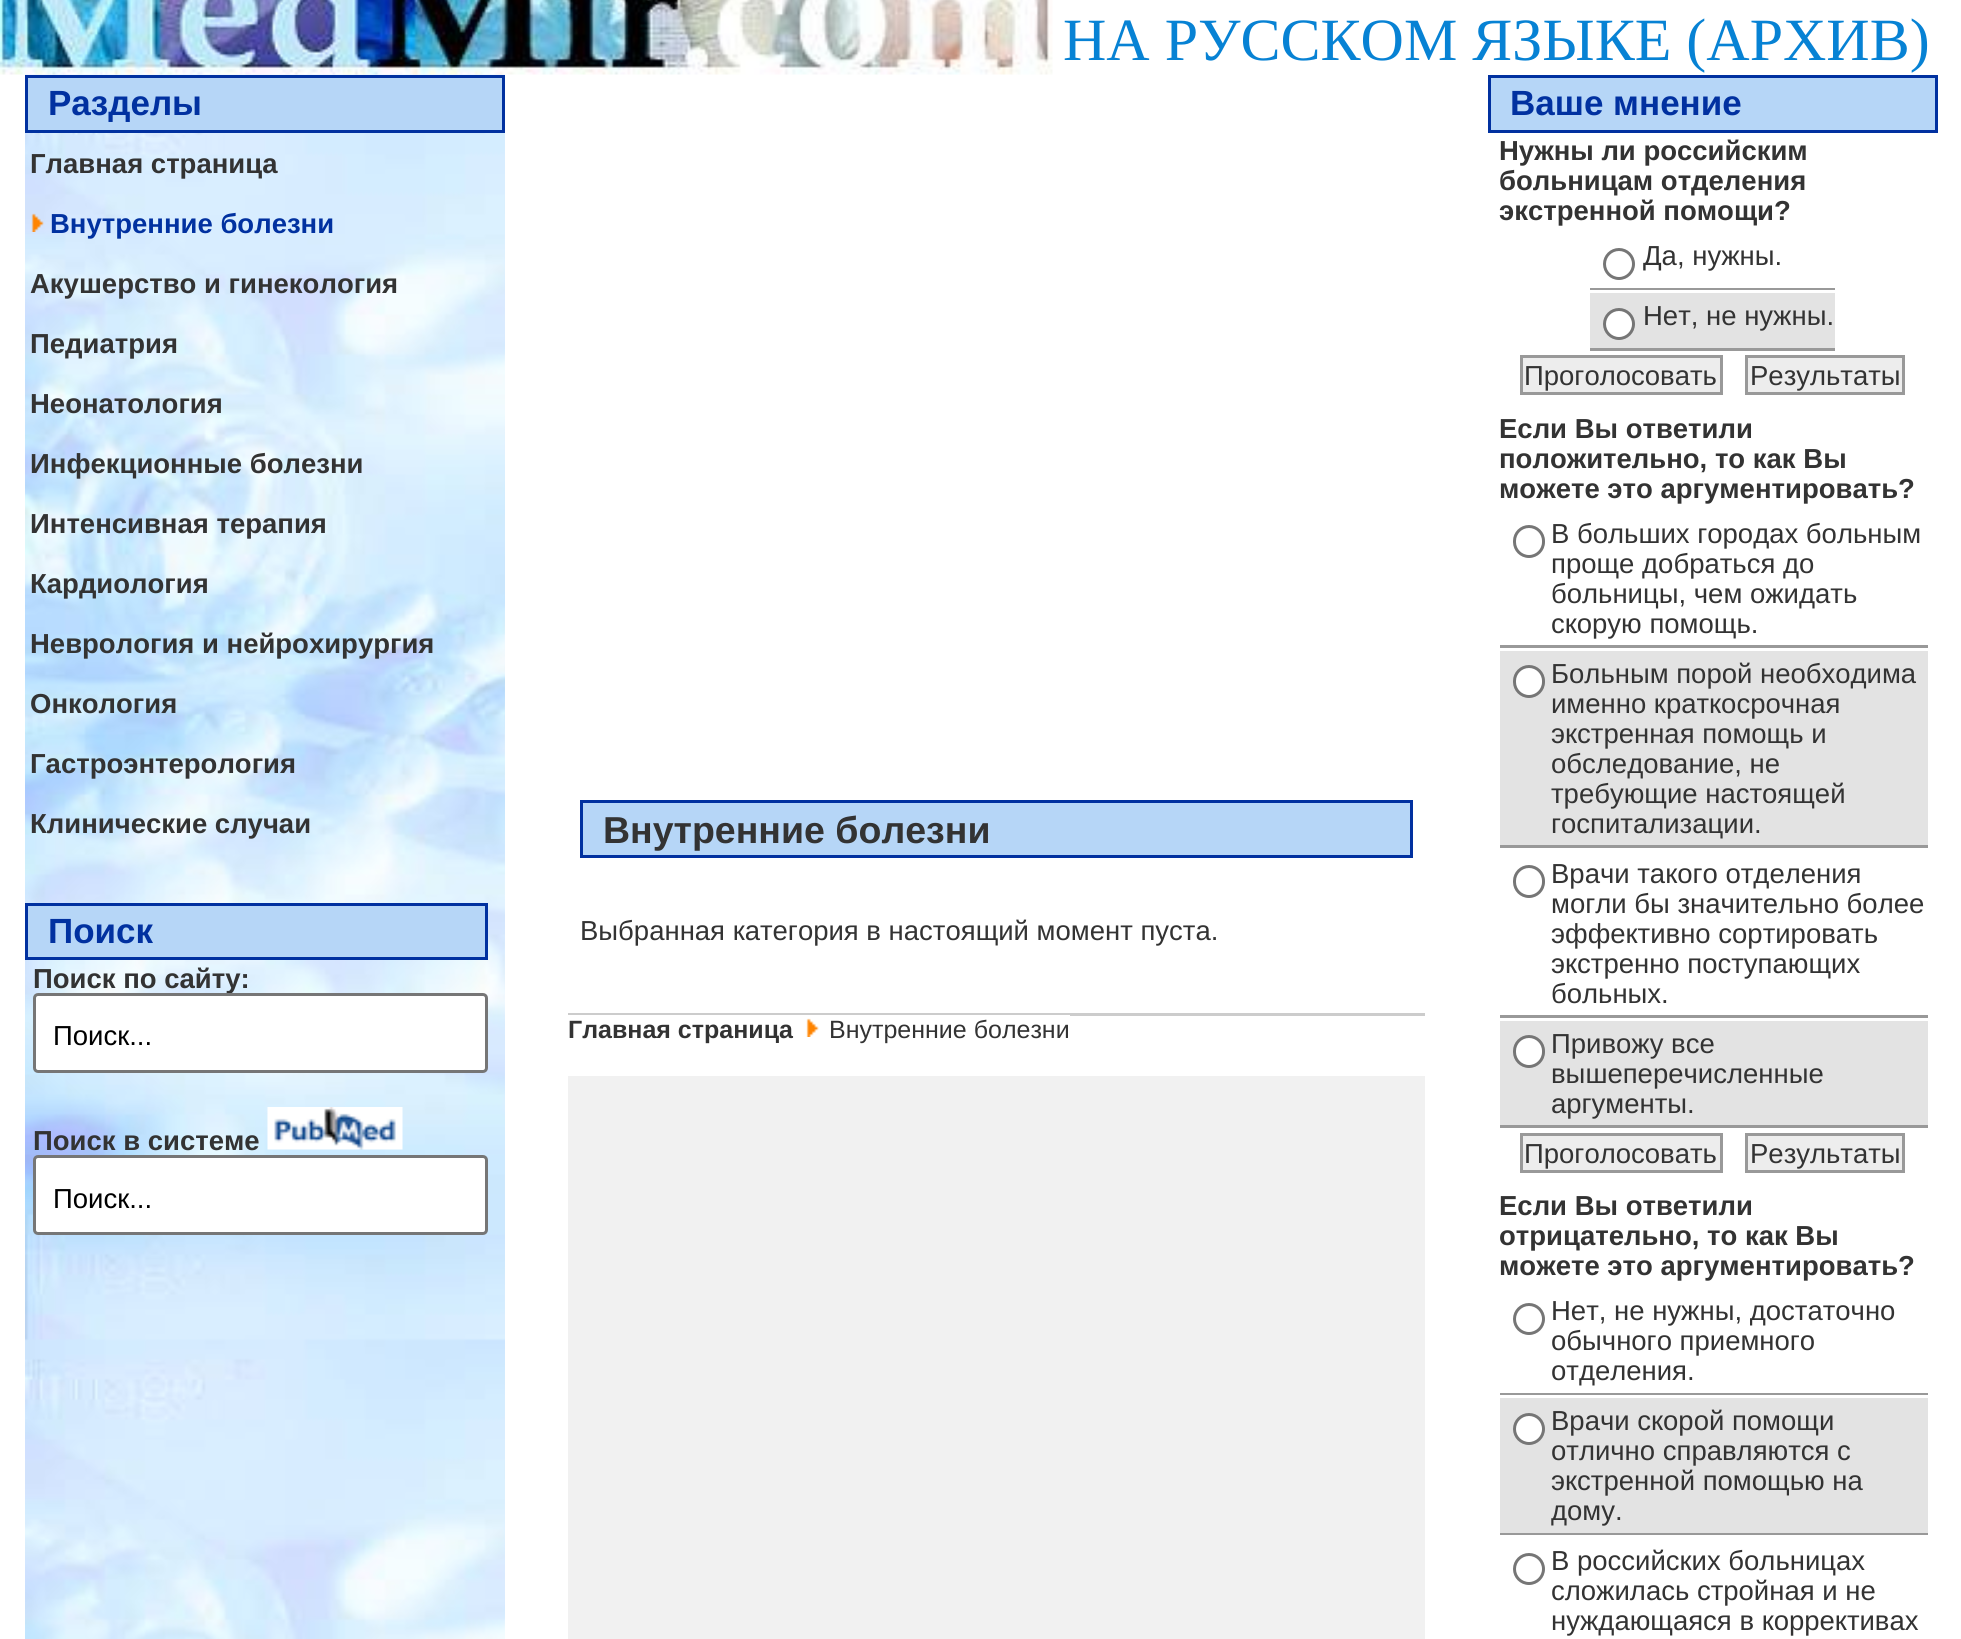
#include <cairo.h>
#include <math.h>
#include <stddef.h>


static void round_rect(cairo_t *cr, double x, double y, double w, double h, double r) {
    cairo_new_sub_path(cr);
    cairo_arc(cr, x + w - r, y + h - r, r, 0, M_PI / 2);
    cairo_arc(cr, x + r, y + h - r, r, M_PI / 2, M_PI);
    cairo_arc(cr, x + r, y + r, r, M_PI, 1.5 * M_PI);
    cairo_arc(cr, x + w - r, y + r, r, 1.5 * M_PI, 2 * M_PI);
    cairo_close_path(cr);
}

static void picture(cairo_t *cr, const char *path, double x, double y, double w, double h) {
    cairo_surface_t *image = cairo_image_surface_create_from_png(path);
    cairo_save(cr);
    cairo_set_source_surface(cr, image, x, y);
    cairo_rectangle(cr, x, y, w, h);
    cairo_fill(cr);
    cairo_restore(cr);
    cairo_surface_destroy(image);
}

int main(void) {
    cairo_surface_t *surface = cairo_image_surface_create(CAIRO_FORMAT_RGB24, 1961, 1639);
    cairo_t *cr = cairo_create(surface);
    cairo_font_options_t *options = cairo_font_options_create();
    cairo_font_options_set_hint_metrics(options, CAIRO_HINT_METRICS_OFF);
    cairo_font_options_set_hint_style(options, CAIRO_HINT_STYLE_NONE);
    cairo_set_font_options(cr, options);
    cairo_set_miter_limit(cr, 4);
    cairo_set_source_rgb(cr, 1, 1, 1);
    cairo_paint(cr);
    picture(cr, "img2.png", 25, 74, 480, 1565);
    picture(cr, "img1.png", 0, 0, 1053, 75);
    cairo_select_font_face(cr, "Liberation Serif", CAIRO_FONT_SLANT_NORMAL, CAIRO_FONT_WEIGHT_NORMAL);
    cairo_set_font_size(cr, 60);
    cairo_set_source_rgb(cr, 0.031, 0.51, 0.831);
    cairo_move_to(cr, 1063, 60);
    cairo_show_text(cr, "НА РУССКОМ ЯЗЫКЕ (АРХИВ)");
    cairo_set_source_rgb(cr, 0.714, 0.839, 0.965);
    cairo_rectangle(cr, 26.5, 76.5, 477, 55);
    cairo_fill_preserve(cr);
    cairo_set_source_rgb(cr, 0.004, 0.192, 0.627);
    cairo_set_line_width(cr, 3);
    cairo_stroke(cr);
    cairo_select_font_face(cr, "Liberation Sans", CAIRO_FONT_SLANT_NORMAL, CAIRO_FONT_WEIGHT_BOLD);
    cairo_set_font_size(cr, 35);
    cairo_move_to(cr, 48, 115);
    cairo_show_text(cr, "Разделы");
    cairo_set_font_size(cr, 27.5);
    cairo_set_source_rgb(cr, 0.2, 0.2, 0.2);
    cairo_move_to(cr, 30, 173);
    cairo_show_text(cr, "Главная страница");
    picture(cr, "img3.png", 31, 213, 13, 19);
    cairo_set_source_rgb(cr, 0.004, 0.192, 0.627);
    cairo_move_to(cr, 50, 233);
    cairo_show_text(cr, "Внутренние болезни");
    cairo_set_source_rgb(cr, 0.2, 0.2, 0.2);
    cairo_move_to(cr, 30, 293);
    cairo_show_text(cr, "Акушерство и гинекология");
    cairo_move_to(cr, 30, 353);
    cairo_show_text(cr, "Педиатрия");
    cairo_move_to(cr, 30, 413);
    cairo_show_text(cr, "Неонатология");
    cairo_move_to(cr, 30, 473);
    cairo_show_text(cr, "Инфекционные болезни");
    cairo_move_to(cr, 30, 533);
    cairo_show_text(cr, "Интенсивная терапия");
    cairo_move_to(cr, 30, 593);
    cairo_show_text(cr, "Кардиология");
    cairo_move_to(cr, 30, 653);
    cairo_show_text(cr, "Неврология и нейрохирургия");
    cairo_move_to(cr, 30, 713);
    cairo_show_text(cr, "Онкология");
    cairo_move_to(cr, 30, 773);
    cairo_show_text(cr, "Гастроэнтерология");
    cairo_move_to(cr, 30, 833);
    cairo_show_text(cr, "Клинические случаи");
    cairo_set_source_rgb(cr, 0.714, 0.839, 0.965);
    cairo_rectangle(cr, 26.5, 904.5, 460, 54);
    cairo_fill_preserve(cr);
    cairo_set_source_rgb(cr, 0.004, 0.192, 0.627);
    cairo_stroke(cr);
    cairo_set_font_size(cr, 35);
    cairo_move_to(cr, 48, 943);
    cairo_show_text(cr, "Поиск");
    cairo_set_font_size(cr, 27.5);
    cairo_set_source_rgb(cr, 0.2, 0.2, 0.2);
    cairo_move_to(cr, 33, 988);
    cairo_show_text(cr, "Поиск по сайту:");
    cairo_set_source_rgb(cr, 1, 1, 1);
    round_rect(cr, 34.5, 994.5, 452, 77, 3.5);
    cairo_fill_preserve(cr);
    cairo_set_source_rgb(cr, 0.463, 0.463, 0.463);
    cairo_stroke(cr);
    cairo_select_font_face(cr, "Liberation Sans", CAIRO_FONT_SLANT_NORMAL, CAIRO_FONT_WEIGHT_NORMAL);
    cairo_set_source_rgb(cr, 0, 0, 0);
    cairo_move_to(cr, 53, 1045);
    cairo_show_text(cr, "Поиск...");
    cairo_select_font_face(cr, "Liberation Sans", CAIRO_FONT_SLANT_NORMAL, CAIRO_FONT_WEIGHT_BOLD);
    cairo_set_source_rgb(cr, 0.2, 0.2, 0.2);
    cairo_move_to(cr, 33, 1150);
    cairo_show_text(cr, "Поиск в системе");
    picture(cr, "img4.png", 267, 1107, 136, 43);
    cairo_set_source_rgb(cr, 1, 1, 1);
    round_rect(cr, 34.5, 1156.5, 452, 77, 3.5);
    cairo_fill_preserve(cr);
    cairo_set_source_rgb(cr, 0.463, 0.463, 0.463);
    cairo_stroke(cr);
    cairo_select_font_face(cr, "Liberation Sans", CAIRO_FONT_SLANT_NORMAL, CAIRO_FONT_WEIGHT_NORMAL);
    cairo_set_source_rgb(cr, 0, 0, 0);
    cairo_move_to(cr, 53, 1208);
    cairo_show_text(cr, "Поиск...");
    cairo_set_source_rgb(cr, 0.714, 0.839, 0.965);
    cairo_rectangle(cr, 581.5, 801.5, 830, 55);
    cairo_fill_preserve(cr);
    cairo_set_source_rgb(cr, 0.004, 0.192, 0.627);
    cairo_stroke(cr);
    cairo_select_font_face(cr, "Liberation Sans", CAIRO_FONT_SLANT_NORMAL, CAIRO_FONT_WEIGHT_BOLD);
    cairo_set_font_size(cr, 37.5);
    cairo_set_source_rgb(cr, 0.2, 0.2, 0.2);
    cairo_move_to(cr, 603, 843);
    cairo_show_text(cr, "Внутренние болезни");
    cairo_select_font_face(cr, "Liberation Sans", CAIRO_FONT_SLANT_NORMAL, CAIRO_FONT_WEIGHT_NORMAL);
    cairo_set_font_size(cr, 27.5);
    cairo_move_to(cr, 580, 940);
    cairo_show_text(cr, "Выбранная категория в настоящий момент пуста.");
    cairo_set_source_rgb(cr, 0.8, 0.8, 0.8);
    cairo_rectangle(cr, 568, 1013, 857, 3);
    cairo_fill(cr);
    cairo_select_font_face(cr, "Liberation Sans", CAIRO_FONT_SLANT_NORMAL, CAIRO_FONT_WEIGHT_BOLD);
    cairo_set_font_size(cr, 25);
    cairo_set_source_rgb(cr, 0.2, 0.2, 0.2);
    cairo_move_to(cr, 568, 1038);
    cairo_show_text(cr, "Главная страница");
    picture(cr, "img5.png", 806, 1018, 13, 19);
    cairo_select_font_face(cr, "Liberation Sans", CAIRO_FONT_SLANT_NORMAL, CAIRO_FONT_WEIGHT_NORMAL);
    cairo_move_to(cr, 829, 1038);
    cairo_show_text(cr, "Внутренние болезни");
    cairo_set_source_rgb(cr, 1, 1, 1);
    cairo_rectangle(cr, 568, 1015, 502, 1);
    cairo_fill(cr);
    cairo_set_source_rgb(cr, 0.945, 0.945, 0.945);
    cairo_rectangle(cr, 568, 1076, 857, 563);
    cairo_fill(cr);
    cairo_set_source_rgb(cr, 0.714, 0.839, 0.965);
    cairo_rectangle(cr, 1489.5, 76.5, 447, 55);
    cairo_fill_preserve(cr);
    cairo_set_source_rgb(cr, 0.004, 0.192, 0.627);
    cairo_stroke(cr);
    cairo_select_font_face(cr, "Liberation Sans", CAIRO_FONT_SLANT_NORMAL, CAIRO_FONT_WEIGHT_BOLD);
    cairo_set_font_size(cr, 35);
    cairo_move_to(cr, 1510, 115);
    cairo_show_text(cr, "Ваше мнение");
    cairo_set_font_size(cr, 27.5);
    cairo_set_source_rgb(cr, 0.2, 0.2, 0.2);
    cairo_move_to(cr, 1499, 160);
    cairo_show_text(cr, "Нужны ли российским");
    cairo_move_to(cr, 1499, 190);
    cairo_show_text(cr, "больницам отделения");
    cairo_move_to(cr, 1499, 220);
    cairo_show_text(cr, "экстренной помощи?");
    cairo_select_font_face(cr, "Liberation Sans", CAIRO_FONT_SLANT_NORMAL, CAIRO_FONT_WEIGHT_NORMAL);
    cairo_move_to(cr, 1643, 265);
    cairo_show_text(cr, "Да, нужны.");
    cairo_set_source_rgb(cr, 0.6, 0.6, 0.6);
    cairo_rectangle(cr, 1590, 288, 245, 2);
    cairo_fill(cr);
    cairo_arc(cr, 1619, 264, 14.5, 0, 2 * M_PI);
    cairo_set_source_rgb(cr, 0.463, 0.463, 0.463);
    cairo_stroke(cr);
    cairo_set_source_rgb(cr, 0.89, 0.89, 0.89);
    cairo_rectangle(cr, 1590, 293, 245, 55);
    cairo_fill(cr);
    cairo_set_source_rgb(cr, 0.6, 0.6, 0.6);
    cairo_rectangle(cr, 1590, 348, 245, 3);
    cairo_fill(cr);
    cairo_set_source_rgb(cr, 1, 1, 1);
    cairo_arc(cr, 1619, 324, 14.5, 0, 2 * M_PI);
    cairo_fill_preserve(cr);
    cairo_set_source_rgb(cr, 0.463, 0.463, 0.463);
    cairo_stroke(cr);
    cairo_set_source_rgb(cr, 0.2, 0.2, 0.2);
    cairo_move_to(cr, 1643, 325);
    cairo_show_text(cr, "Нет, не нужны.");
    cairo_set_source_rgb(cr, 0.929, 0.929, 0.929);
    cairo_rectangle(cr, 1521.5, 356.5, 200, 37);
    cairo_fill_preserve(cr);
    cairo_set_source_rgb(cr, 0.6, 0.6, 0.6);
    cairo_stroke(cr);
    cairo_set_source_rgb(cr, 0.2, 0.2, 0.2);
    cairo_move_to(cr, 1524, 385);
    cairo_show_text(cr, "Проголосовать");
    cairo_set_source_rgb(cr, 0.929, 0.929, 0.929);
    cairo_rectangle(cr, 1746.5, 356.5, 157, 37);
    cairo_fill_preserve(cr);
    cairo_set_source_rgb(cr, 0.6, 0.6, 0.6);
    cairo_stroke(cr);
    cairo_set_source_rgb(cr, 0.2, 0.2, 0.2);
    cairo_move_to(cr, 1750, 385);
    cairo_show_text(cr, "Результаты");
    cairo_select_font_face(cr, "Liberation Sans", CAIRO_FONT_SLANT_NORMAL, CAIRO_FONT_WEIGHT_BOLD);
    cairo_move_to(cr, 1499, 438);
    cairo_show_text(cr, "Если Вы ответили");
    cairo_move_to(cr, 1499, 468);
    cairo_show_text(cr, "положительно, то как Вы");
    cairo_move_to(cr, 1499, 498);
    cairo_show_text(cr, "можете это аргументировать?");
    cairo_select_font_face(cr, "Liberation Sans", CAIRO_FONT_SLANT_NORMAL, CAIRO_FONT_WEIGHT_NORMAL);
    cairo_move_to(cr, 1551, 543);
    cairo_show_text(cr, "В больших городах больным");
    cairo_move_to(cr, 1551, 573);
    cairo_show_text(cr, "проще добраться до");
    cairo_move_to(cr, 1551, 603);
    cairo_show_text(cr, "больницы, чем ожидать");
    cairo_move_to(cr, 1551, 633);
    cairo_show_text(cr, "скорую помощь.");
    cairo_set_source_rgb(cr, 0.6, 0.6, 0.6);
    cairo_rectangle(cr, 1500, 645, 428, 3);
    cairo_fill(cr);
    round_rect(cr, 1514.5, 526.5, 29, 30, 14.5);
    cairo_set_source_rgb(cr, 0.463, 0.463, 0.463);
    cairo_stroke(cr);
    cairo_set_source_rgb(cr, 0.89, 0.89, 0.89);
    cairo_rectangle(cr, 1500, 651, 428, 194);
    cairo_fill(cr);
    cairo_set_source_rgb(cr, 0.6, 0.6, 0.6);
    cairo_rectangle(cr, 1500, 845, 428, 3);
    cairo_fill(cr);
    cairo_set_source_rgb(cr, 1, 1, 1);
    round_rect(cr, 1514.5, 666.5, 29, 30, 14.5);
    cairo_fill_preserve(cr);
    cairo_set_source_rgb(cr, 0.463, 0.463, 0.463);
    cairo_stroke(cr);
    cairo_set_source_rgb(cr, 0.2, 0.2, 0.2);
    cairo_move_to(cr, 1551, 683);
    cairo_show_text(cr, "Больным порой необходима");
    cairo_move_to(cr, 1551, 713);
    cairo_show_text(cr, "именно краткосрочная");
    cairo_move_to(cr, 1551, 743);
    cairo_show_text(cr, "экстренная помощь и");
    cairo_move_to(cr, 1551, 773);
    cairo_show_text(cr, "обследование, не");
    cairo_move_to(cr, 1551, 803);
    cairo_show_text(cr, "требующие настоящей");
    cairo_move_to(cr, 1551, 833);
    cairo_show_text(cr, "госпитализации.");
    cairo_move_to(cr, 1551, 883);
    cairo_show_text(cr, "Врачи такого отделения");
    cairo_move_to(cr, 1551, 913);
    cairo_show_text(cr, "могли бы значительно более");
    cairo_move_to(cr, 1551, 943);
    cairo_show_text(cr, "эффективно сортировать");
    cairo_move_to(cr, 1551, 973);
    cairo_show_text(cr, "экстренно поступающих");
    cairo_move_to(cr, 1551, 1003);
    cairo_show_text(cr, "больных.");
    cairo_set_source_rgb(cr, 0.6, 0.6, 0.6);
    cairo_rectangle(cr, 1500, 1015, 428, 3);
    cairo_fill(cr);
    round_rect(cr, 1514.5, 866.5, 29, 30, 14.5);
    cairo_set_source_rgb(cr, 0.463, 0.463, 0.463);
    cairo_stroke(cr);
    cairo_set_source_rgb(cr, 0.89, 0.89, 0.89);
    cairo_rectangle(cr, 1500, 1021, 428, 104);
    cairo_fill(cr);
    cairo_set_source_rgb(cr, 0.6, 0.6, 0.6);
    cairo_rectangle(cr, 1500, 1125, 428, 3);
    cairo_fill(cr);
    cairo_set_source_rgb(cr, 1, 1, 1);
    round_rect(cr, 1514.5, 1036.5, 29, 30, 14.5);
    cairo_fill_preserve(cr);
    cairo_set_source_rgb(cr, 0.463, 0.463, 0.463);
    cairo_stroke(cr);
    cairo_set_source_rgb(cr, 0.2, 0.2, 0.2);
    cairo_move_to(cr, 1551, 1053);
    cairo_show_text(cr, "Привожу все");
    cairo_move_to(cr, 1551, 1083);
    cairo_show_text(cr, "вышеперечисленные");
    cairo_move_to(cr, 1551, 1113);
    cairo_show_text(cr, "аргументы.");
    cairo_set_source_rgb(cr, 0.929, 0.929, 0.929);
    cairo_rectangle(cr, 1521.5, 1134.5, 200, 37);
    cairo_fill_preserve(cr);
    cairo_set_source_rgb(cr, 0.6, 0.6, 0.6);
    cairo_stroke(cr);
    cairo_set_source_rgb(cr, 0.2, 0.2, 0.2);
    cairo_move_to(cr, 1524, 1163);
    cairo_show_text(cr, "Проголосовать");
    cairo_set_source_rgb(cr, 0.929, 0.929, 0.929);
    cairo_rectangle(cr, 1746.5, 1134.5, 157, 37);
    cairo_fill_preserve(cr);
    cairo_set_source_rgb(cr, 0.6, 0.6, 0.6);
    cairo_stroke(cr);
    cairo_set_source_rgb(cr, 0.2, 0.2, 0.2);
    cairo_move_to(cr, 1750, 1163);
    cairo_show_text(cr, "Результаты");
    cairo_select_font_face(cr, "Liberation Sans", CAIRO_FONT_SLANT_NORMAL, CAIRO_FONT_WEIGHT_BOLD);
    cairo_move_to(cr, 1499, 1215);
    cairo_show_text(cr, "Если Вы ответили");
    cairo_move_to(cr, 1499, 1245);
    cairo_show_text(cr, "отрицательно, то как Вы");
    cairo_move_to(cr, 1499, 1275);
    cairo_show_text(cr, "можете это аргументировать?");
    cairo_select_font_face(cr, "Liberation Sans", CAIRO_FONT_SLANT_NORMAL, CAIRO_FONT_WEIGHT_NORMAL);
    cairo_move_to(cr, 1551, 1320);
    cairo_show_text(cr, "Нет, не нужны, достаточно");
    cairo_move_to(cr, 1551, 1350);
    cairo_show_text(cr, "обычного приемного");
    cairo_move_to(cr, 1551, 1380);
    cairo_show_text(cr, "отделения.");
    cairo_set_source_rgb(cr, 0.6, 0.6, 0.6);
    cairo_rectangle(cr, 1500, 1393, 428, 2);
    cairo_fill(cr);
    cairo_arc(cr, 1529, 1319, 14.5, 0, 2 * M_PI);
    cairo_set_source_rgb(cr, 0.463, 0.463, 0.463);
    cairo_stroke(cr);
    cairo_set_source_rgb(cr, 0.89, 0.89, 0.89);
    cairo_rectangle(cr, 1500, 1398, 428, 135);
    cairo_fill(cr);
    cairo_set_source_rgb(cr, 0.6, 0.6, 0.6);
    cairo_rectangle(cr, 1500, 1533, 428, 2);
    cairo_fill(cr);
    cairo_set_source_rgb(cr, 1, 1, 1);
    cairo_arc(cr, 1529, 1429, 14.5, 0, 2 * M_PI);
    cairo_fill_preserve(cr);
    cairo_set_source_rgb(cr, 0.463, 0.463, 0.463);
    cairo_stroke(cr);
    cairo_set_source_rgb(cr, 0.2, 0.2, 0.2);
    cairo_move_to(cr, 1551, 1430);
    cairo_show_text(cr, "Врачи скорой помощи");
    cairo_move_to(cr, 1551, 1460);
    cairo_show_text(cr, "отлично справляются с");
    cairo_move_to(cr, 1551, 1490);
    cairo_show_text(cr, "экстренной помощью на");
    cairo_move_to(cr, 1551, 1520);
    cairo_show_text(cr, "дому.");
    cairo_new_path(cr);
    cairo_arc(cr, 1529, 1569, 14.5, 0, 2 * M_PI);
    cairo_set_source_rgb(cr, 0.463, 0.463, 0.463);
    cairo_stroke(cr);
    cairo_set_source_rgb(cr, 0.2, 0.2, 0.2);
    cairo_move_to(cr, 1551, 1570);
    cairo_show_text(cr, "В российских больницах");
    cairo_move_to(cr, 1551, 1600);
    cairo_show_text(cr, "сложилась стройная и не");
    cairo_move_to(cr, 1551, 1630);
    cairo_show_text(cr, "нуждающаяся в коррективах");
    cairo_surface_write_to_png(surface, "page.png");
    cairo_font_options_destroy(options);
    cairo_destroy(cr);
    cairo_surface_destroy(surface);
    return 0;
}
